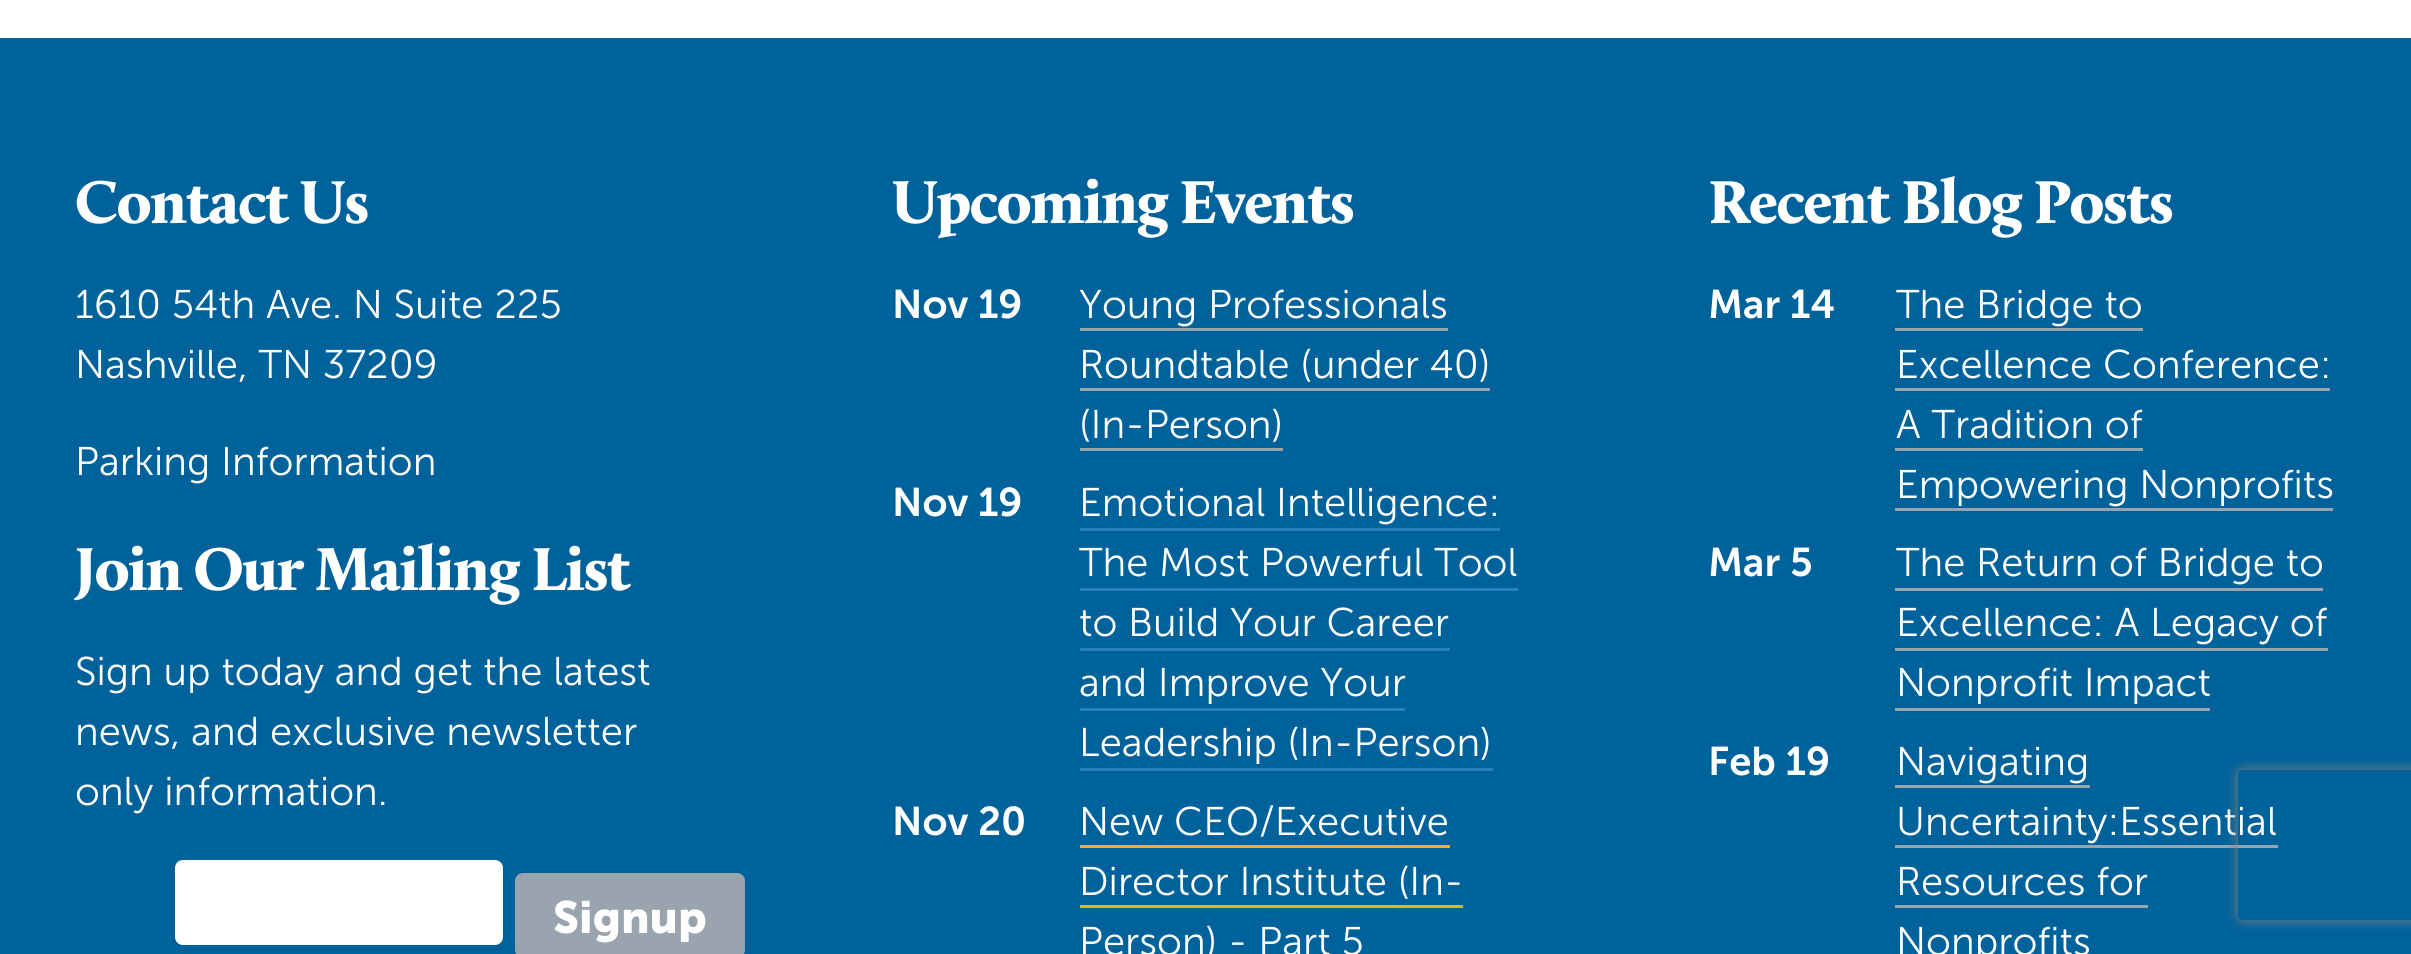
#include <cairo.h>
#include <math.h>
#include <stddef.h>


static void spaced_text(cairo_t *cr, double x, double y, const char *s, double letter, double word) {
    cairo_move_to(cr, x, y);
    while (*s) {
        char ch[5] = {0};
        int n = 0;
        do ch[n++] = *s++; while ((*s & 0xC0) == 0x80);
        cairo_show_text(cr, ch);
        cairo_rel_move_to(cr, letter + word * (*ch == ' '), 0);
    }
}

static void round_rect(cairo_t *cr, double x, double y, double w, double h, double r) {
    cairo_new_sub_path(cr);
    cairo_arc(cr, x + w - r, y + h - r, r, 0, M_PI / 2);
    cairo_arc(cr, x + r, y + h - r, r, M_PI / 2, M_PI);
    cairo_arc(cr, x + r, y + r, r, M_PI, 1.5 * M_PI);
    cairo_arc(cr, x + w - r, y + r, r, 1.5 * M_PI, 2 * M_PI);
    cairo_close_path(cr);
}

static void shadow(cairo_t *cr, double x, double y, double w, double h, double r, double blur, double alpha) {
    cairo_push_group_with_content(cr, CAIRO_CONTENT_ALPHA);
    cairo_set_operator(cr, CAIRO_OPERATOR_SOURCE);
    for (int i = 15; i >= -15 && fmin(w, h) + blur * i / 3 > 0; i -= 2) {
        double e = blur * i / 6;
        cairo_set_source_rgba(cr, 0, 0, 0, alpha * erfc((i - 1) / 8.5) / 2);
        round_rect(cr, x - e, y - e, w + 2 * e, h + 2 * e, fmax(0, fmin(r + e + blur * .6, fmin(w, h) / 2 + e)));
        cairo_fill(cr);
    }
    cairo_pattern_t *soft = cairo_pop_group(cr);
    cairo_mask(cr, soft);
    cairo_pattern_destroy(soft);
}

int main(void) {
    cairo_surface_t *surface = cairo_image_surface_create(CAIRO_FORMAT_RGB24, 2411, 954);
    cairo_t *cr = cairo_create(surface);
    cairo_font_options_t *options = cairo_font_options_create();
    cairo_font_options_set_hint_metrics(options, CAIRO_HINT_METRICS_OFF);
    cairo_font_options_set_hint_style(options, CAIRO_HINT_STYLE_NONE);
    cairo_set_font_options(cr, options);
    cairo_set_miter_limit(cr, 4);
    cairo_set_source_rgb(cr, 1, 1, 1);
    cairo_paint(cr);
    cairo_set_source_rgb(cr, 0, 0.384, 0.608);
    cairo_rectangle(cr, 0, 38, 2411, 916);
    cairo_fill(cr);
    cairo_select_font_face(cr, "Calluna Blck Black", CAIRO_FONT_SLANT_NORMAL, CAIRO_FONT_WEIGHT_NORMAL);
    cairo_set_font_size(cr, 62.5);
    cairo_set_source_rgb(cr, 1, 1, 1);
    spaced_text(cr, 75, 223, "Contact Us", -1.25, 0);
    cairo_select_font_face(cr, "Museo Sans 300 Light", CAIRO_FONT_SLANT_NORMAL, CAIRO_FONT_WEIGHT_NORMAL);
    cairo_set_font_size(cr, 40);
    cairo_move_to(cr, 75, 318);
    cairo_show_text(cr, "1610 54th Ave. N Suite 225");
    cairo_move_to(cr, 75, 378);
    cairo_show_text(cr, "Nashville, TN 37209");
    cairo_move_to(cr, 75, 475);
    cairo_show_text(cr, "Parking Information");
    cairo_select_font_face(cr, "Calluna Blck Black", CAIRO_FONT_SLANT_NORMAL, CAIRO_FONT_WEIGHT_NORMAL);
    cairo_set_font_size(cr, 62.5);
    spaced_text(cr, 75, 590, "Join Our Mailing List", -1.25, 0);
    cairo_select_font_face(cr, "Museo Sans 300 Light", CAIRO_FONT_SLANT_NORMAL, CAIRO_FONT_WEIGHT_NORMAL);
    cairo_set_font_size(cr, 40);
    cairo_move_to(cr, 75, 685);
    cairo_show_text(cr, "Sign up today and get the latest");
    cairo_move_to(cr, 75, 745);
    cairo_show_text(cr, "news, and exclusive newsletter");
    cairo_move_to(cr, 75, 805);
    cairo_show_text(cr, "only information.");
    round_rect(cr, 175, 860, 328, 85, 8);
    cairo_fill(cr);
    cairo_set_source_rgb(cr, 0.6, 0.643, 0.682);
    round_rect(cr, 515, 873, 230, 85, 8);
    cairo_fill(cr);
    cairo_select_font_face(cr, "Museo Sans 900", CAIRO_FONT_SLANT_NORMAL, CAIRO_FONT_WEIGHT_BOLD);
    cairo_set_font_size(cr, 45);
    cairo_set_source_rgb(cr, 1, 1, 1);
    cairo_move_to(cr, 553, 933);
    cairo_show_text(cr, "Signup");
    cairo_select_font_face(cr, "Calluna Blck Black", CAIRO_FONT_SLANT_NORMAL, CAIRO_FONT_WEIGHT_NORMAL);
    cairo_set_font_size(cr, 62.5);
    spaced_text(cr, 892, 223, "Upcoming Events", -1.25, 0);
    cairo_select_font_face(cr, "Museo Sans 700 SemiBold", CAIRO_FONT_SLANT_NORMAL, CAIRO_FONT_WEIGHT_NORMAL);
    cairo_set_font_size(cr, 40);
    cairo_move_to(cr, 892, 318);
    cairo_show_text(cr, "Nov 19");
    cairo_select_font_face(cr, "Museo Sans 300 Light", CAIRO_FONT_SLANT_NORMAL, CAIRO_FONT_WEIGHT_NORMAL);
    cairo_move_to(cr, 1079, 318);
    cairo_show_text(cr, "Young Professionals");
    cairo_set_source_rgb(cr, 0.6, 0.643, 0.682);
    cairo_rectangle(cr, 1080, 328, 368, 3);
    cairo_fill(cr);
    cairo_set_source_rgb(cr, 1, 1, 1);
    cairo_move_to(cr, 1079, 378);
    cairo_show_text(cr, "Roundtable (under 40)");
    cairo_set_source_rgb(cr, 0.6, 0.643, 0.682);
    cairo_rectangle(cr, 1080, 388, 410, 3);
    cairo_fill(cr);
    cairo_set_source_rgb(cr, 1, 1, 1);
    cairo_move_to(cr, 1079, 438);
    cairo_show_text(cr, "(In-Person)");
    cairo_set_source_rgb(cr, 0.6, 0.643, 0.682);
    cairo_rectangle(cr, 1080, 448, 203, 3);
    cairo_fill(cr);
    cairo_select_font_face(cr, "Museo Sans 700 SemiBold", CAIRO_FONT_SLANT_NORMAL, CAIRO_FONT_WEIGHT_NORMAL);
    cairo_set_source_rgb(cr, 1, 1, 1);
    cairo_move_to(cr, 892, 516);
    cairo_show_text(cr, "Nov 19");
    cairo_select_font_face(cr, "Museo Sans 300 Light", CAIRO_FONT_SLANT_NORMAL, CAIRO_FONT_WEIGHT_NORMAL);
    cairo_move_to(cr, 1079, 516);
    cairo_show_text(cr, "Emotional Intelligence:");
    cairo_set_source_rgb(cr, 0.161, 0.502, 0.725);
    cairo_rectangle(cr, 1080, 528, 420, 3);
    cairo_fill(cr);
    cairo_set_source_rgb(cr, 1, 1, 1);
    cairo_move_to(cr, 1079, 576);
    cairo_show_text(cr, "The Most Powerful Tool");
    cairo_set_source_rgb(cr, 0.161, 0.502, 0.725);
    cairo_rectangle(cr, 1080, 588, 438, 3);
    cairo_fill(cr);
    cairo_set_source_rgb(cr, 1, 1, 1);
    cairo_move_to(cr, 1079, 636);
    cairo_show_text(cr, "to Build Your Career");
    cairo_set_source_rgb(cr, 0.161, 0.502, 0.725);
    cairo_rectangle(cr, 1080, 648, 370, 3);
    cairo_fill(cr);
    cairo_set_source_rgb(cr, 1, 1, 1);
    cairo_move_to(cr, 1079, 696);
    cairo_show_text(cr, "and Improve Your");
    cairo_set_source_rgb(cr, 0.161, 0.502, 0.725);
    cairo_rectangle(cr, 1080, 708, 325, 3);
    cairo_fill(cr);
    cairo_set_source_rgb(cr, 1, 1, 1);
    cairo_move_to(cr, 1079, 756);
    cairo_show_text(cr, "Leadership (In-Person)");
    cairo_set_source_rgb(cr, 0.161, 0.502, 0.725);
    cairo_rectangle(cr, 1080, 768, 413, 3);
    cairo_fill(cr);
    cairo_select_font_face(cr, "Museo Sans 700 SemiBold", CAIRO_FONT_SLANT_NORMAL, CAIRO_FONT_WEIGHT_NORMAL);
    cairo_set_source_rgb(cr, 1, 1, 1);
    cairo_move_to(cr, 892, 835);
    cairo_show_text(cr, "Nov 20");
    cairo_select_font_face(cr, "Museo Sans 300 Light", CAIRO_FONT_SLANT_NORMAL, CAIRO_FONT_WEIGHT_NORMAL);
    cairo_move_to(cr, 1079, 835);
    cairo_show_text(cr, "New CEO/Executive");
    cairo_set_source_rgb(cr, 0.886, 0.725, 0);
    cairo_rectangle(cr, 1080, 845, 370, 3);
    cairo_fill(cr);
    cairo_set_source_rgb(cr, 1, 1, 1);
    cairo_move_to(cr, 1079, 895);
    cairo_show_text(cr, "Director Institute (In-");
    cairo_set_source_rgb(cr, 0.886, 0.725, 0);
    cairo_rectangle(cr, 1080, 905, 383, 3);
    cairo_fill(cr);
    cairo_set_source_rgb(cr, 1, 1, 1);
    cairo_move_to(cr, 1079, 955);
    cairo_show_text(cr, "Person) - Part 5");
    cairo_select_font_face(cr, "Calluna Blck Black", CAIRO_FONT_SLANT_NORMAL, CAIRO_FONT_WEIGHT_NORMAL);
    cairo_set_font_size(cr, 62.5);
    spaced_text(cr, 1708, 223, "Recent Blog Posts", -1.25, 0);
    cairo_select_font_face(cr, "Museo Sans 700 SemiBold", CAIRO_FONT_SLANT_NORMAL, CAIRO_FONT_WEIGHT_NORMAL);
    cairo_set_font_size(cr, 40);
    cairo_move_to(cr, 1708, 318);
    cairo_show_text(cr, "Mar 14");
    cairo_select_font_face(cr, "Museo Sans 300 Light", CAIRO_FONT_SLANT_NORMAL, CAIRO_FONT_WEIGHT_NORMAL);
    cairo_move_to(cr, 1896, 318);
    cairo_show_text(cr, "The Bridge to");
    cairo_set_source_rgb(cr, 0.6, 0.643, 0.682);
    cairo_rectangle(cr, 1895, 328, 248, 3);
    cairo_fill(cr);
    cairo_set_source_rgb(cr, 1, 1, 1);
    cairo_move_to(cr, 1896, 378);
    cairo_show_text(cr, "Excellence Conference:");
    cairo_set_source_rgb(cr, 0.6, 0.643, 0.682);
    cairo_rectangle(cr, 1895, 388, 435, 3);
    cairo_fill(cr);
    cairo_set_source_rgb(cr, 1, 1, 1);
    cairo_move_to(cr, 1896, 438);
    cairo_show_text(cr, "A Tradition of");
    cairo_set_source_rgb(cr, 0.6, 0.643, 0.682);
    cairo_rectangle(cr, 1895, 448, 248, 3);
    cairo_fill(cr);
    cairo_set_source_rgb(cr, 1, 1, 1);
    cairo_move_to(cr, 1896, 498);
    cairo_show_text(cr, "Empowering Nonprofits");
    cairo_set_source_rgb(cr, 0.6, 0.643, 0.682);
    cairo_rectangle(cr, 1895, 508, 438, 3);
    cairo_fill(cr);
    cairo_select_font_face(cr, "Museo Sans 700 SemiBold", CAIRO_FONT_SLANT_NORMAL, CAIRO_FONT_WEIGHT_NORMAL);
    cairo_set_source_rgb(cr, 1, 1, 1);
    cairo_move_to(cr, 1708, 576);
    cairo_show_text(cr, "Mar 5");
    cairo_select_font_face(cr, "Museo Sans 300 Light", CAIRO_FONT_SLANT_NORMAL, CAIRO_FONT_WEIGHT_NORMAL);
    cairo_move_to(cr, 1896, 576);
    cairo_show_text(cr, "The Return of Bridge to");
    cairo_set_source_rgb(cr, 0.6, 0.643, 0.682);
    cairo_rectangle(cr, 1895, 588, 428, 3);
    cairo_fill(cr);
    cairo_set_source_rgb(cr, 1, 1, 1);
    cairo_move_to(cr, 1896, 636);
    cairo_show_text(cr, "Excellence: A Legacy of");
    cairo_set_source_rgb(cr, 0.6, 0.643, 0.682);
    cairo_rectangle(cr, 1895, 648, 433, 3);
    cairo_fill(cr);
    cairo_set_source_rgb(cr, 1, 1, 1);
    cairo_move_to(cr, 1896, 696);
    cairo_show_text(cr, "Nonprofit Impact");
    cairo_set_source_rgb(cr, 0.6, 0.643, 0.682);
    cairo_rectangle(cr, 1895, 708, 315, 3);
    cairo_fill(cr);
    cairo_select_font_face(cr, "Museo Sans 700 SemiBold", CAIRO_FONT_SLANT_NORMAL, CAIRO_FONT_WEIGHT_NORMAL);
    cairo_set_source_rgb(cr, 1, 1, 1);
    cairo_move_to(cr, 1708, 775);
    cairo_show_text(cr, "Feb 19");
    cairo_select_font_face(cr, "Museo Sans 300 Light", CAIRO_FONT_SLANT_NORMAL, CAIRO_FONT_WEIGHT_NORMAL);
    cairo_move_to(cr, 1896, 775);
    cairo_show_text(cr, "Navigating");
    cairo_set_source_rgb(cr, 0.6, 0.643, 0.682);
    cairo_rectangle(cr, 1895, 785, 195, 3);
    cairo_fill(cr);
    cairo_set_source_rgb(cr, 1, 1, 1);
    cairo_move_to(cr, 1896, 835);
    cairo_show_text(cr, "Uncertainty:Essential");
    cairo_set_source_rgb(cr, 0.6, 0.643, 0.682);
    cairo_rectangle(cr, 1895, 845, 383, 3);
    cairo_fill(cr);
    cairo_set_source_rgb(cr, 1, 1, 1);
    cairo_move_to(cr, 1896, 895);
    cairo_show_text(cr, "Resources for");
    cairo_set_source_rgb(cr, 0.6, 0.643, 0.682);
    cairo_rectangle(cr, 1895, 905, 253, 3);
    cairo_fill(cr);
    cairo_set_source_rgb(cr, 1, 1, 1);
    cairo_move_to(cr, 1896, 955);
    cairo_show_text(cr, "Nonprofits");
    cairo_save(cr);
    cairo_set_fill_rule(cr, CAIRO_FILL_RULE_EVEN_ODD);
    cairo_new_path(cr);
    cairo_move_to(cr, 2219, 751);
    cairo_line_to(cr, 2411, 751);
    cairo_line_to(cr, 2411, 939);
    cairo_line_to(cr, 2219, 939);
    cairo_close_path(cr);
    cairo_move_to(cr, 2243, 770);
    cairo_line_to(cr, 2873, 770);
    cairo_curve_to(cr, 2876, 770, 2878, 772, 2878, 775);
    cairo_line_to(cr, 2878, 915);
    cairo_curve_to(cr, 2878, 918, 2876, 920, 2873, 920);
    cairo_line_to(cr, 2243, 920);
    cairo_curve_to(cr, 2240, 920, 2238, 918, 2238, 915);
    cairo_line_to(cr, 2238, 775);
    cairo_curve_to(cr, 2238, 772, 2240, 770, 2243, 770);
    cairo_close_path(cr);
    cairo_clip(cr);
    cairo_set_source_rgb(cr, 0.502, 0.502, 0.502);
    shadow(cr, 2238, 770, 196, 150, 5, 6, 1);
    cairo_restore(cr);
    cairo_surface_write_to_png(surface, "page.png");
    cairo_font_options_destroy(options);
    cairo_destroy(cr);
    cairo_surface_destroy(surface);
    return 0;
}
